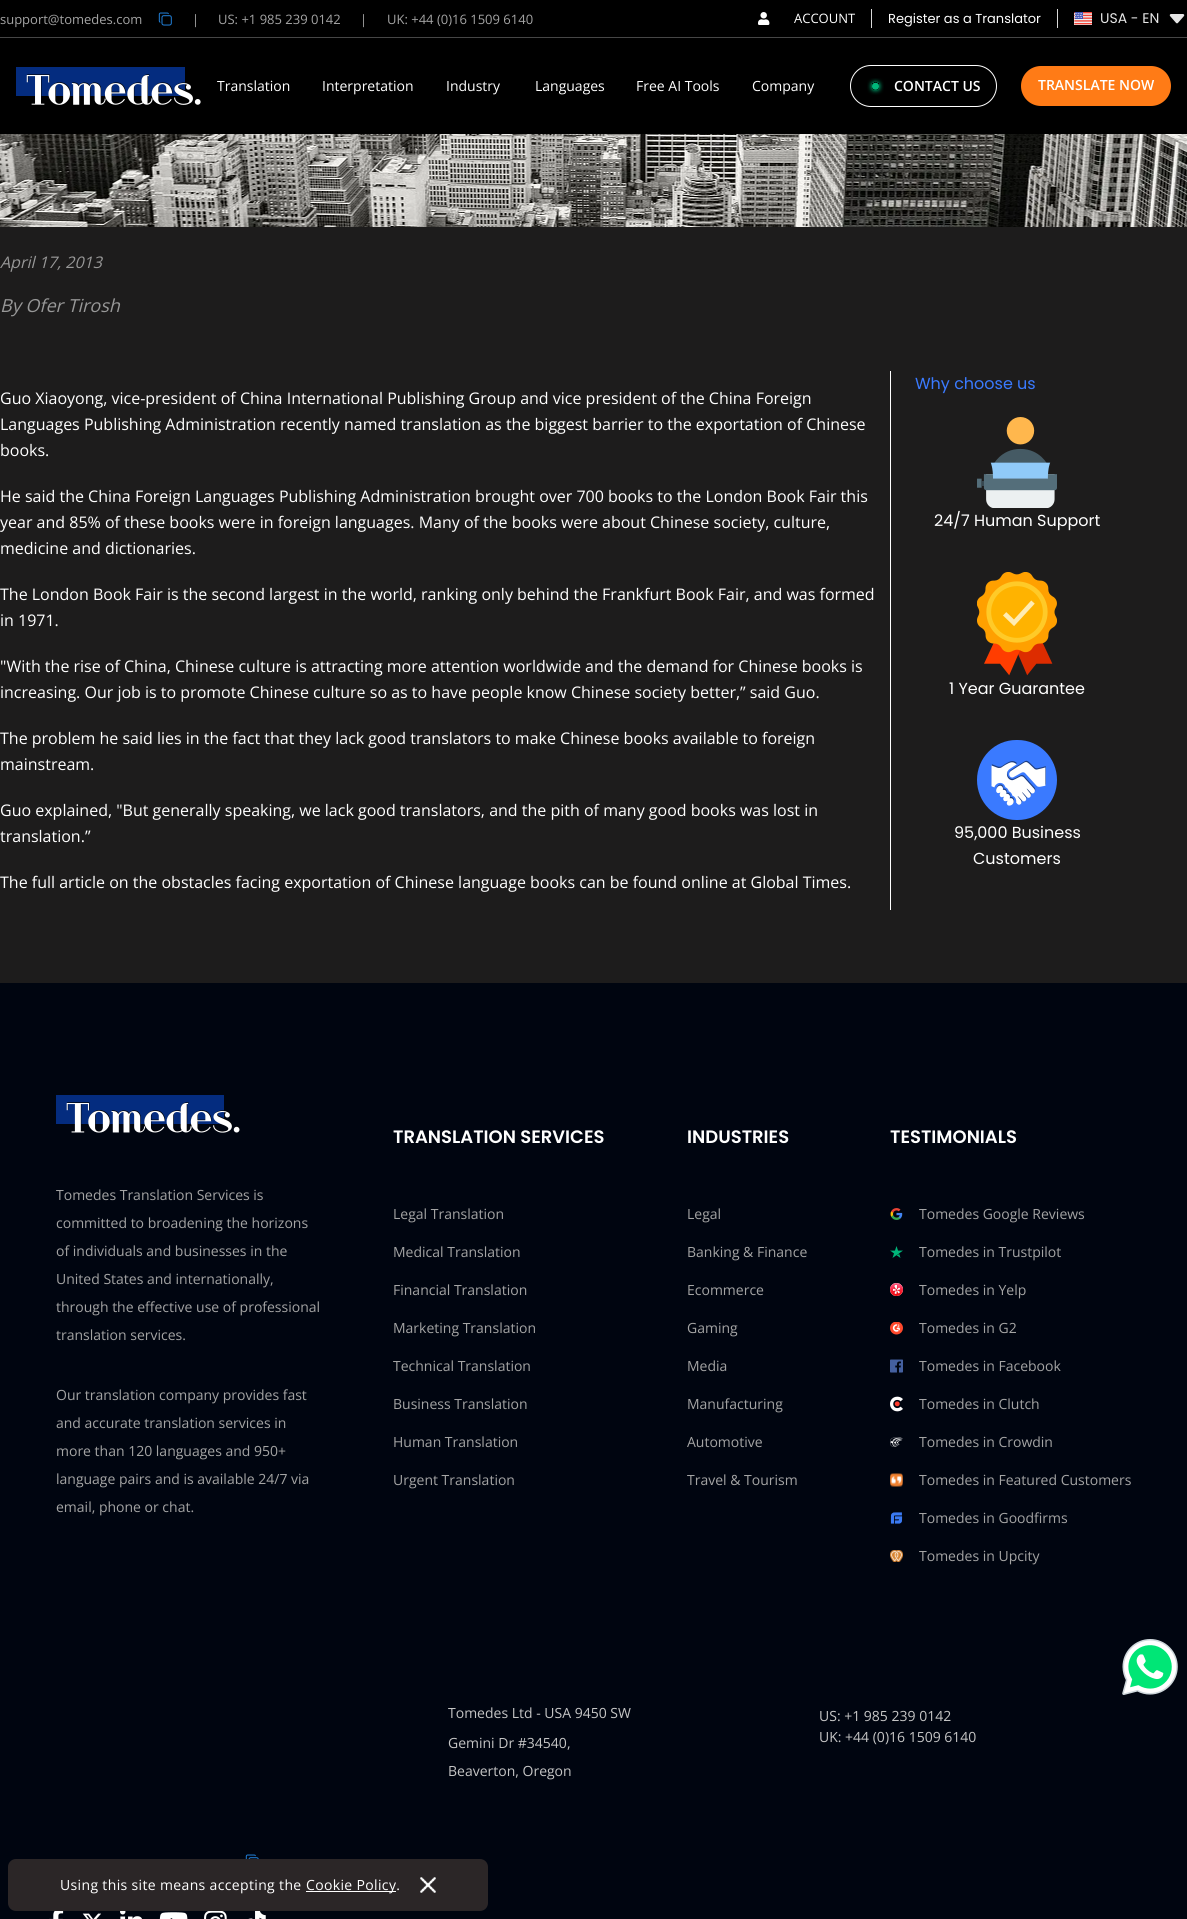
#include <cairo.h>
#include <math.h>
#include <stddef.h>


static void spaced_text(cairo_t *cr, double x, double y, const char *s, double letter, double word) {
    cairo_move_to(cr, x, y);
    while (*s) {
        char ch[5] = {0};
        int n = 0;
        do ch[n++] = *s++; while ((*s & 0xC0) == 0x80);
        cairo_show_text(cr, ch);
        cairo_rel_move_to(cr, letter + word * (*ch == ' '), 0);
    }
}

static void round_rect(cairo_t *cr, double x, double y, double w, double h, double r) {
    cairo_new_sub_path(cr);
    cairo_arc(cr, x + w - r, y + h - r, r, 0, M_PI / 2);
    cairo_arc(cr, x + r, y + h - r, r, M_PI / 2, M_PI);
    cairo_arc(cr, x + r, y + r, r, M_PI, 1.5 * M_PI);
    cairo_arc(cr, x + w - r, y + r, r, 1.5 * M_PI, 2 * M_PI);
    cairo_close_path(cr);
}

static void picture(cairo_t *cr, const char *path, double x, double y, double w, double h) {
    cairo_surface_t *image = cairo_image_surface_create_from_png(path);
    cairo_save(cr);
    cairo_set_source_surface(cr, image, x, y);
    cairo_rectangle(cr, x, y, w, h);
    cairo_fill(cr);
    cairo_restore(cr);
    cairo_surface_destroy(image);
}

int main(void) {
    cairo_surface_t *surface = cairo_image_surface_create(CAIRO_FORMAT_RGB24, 1187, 1919);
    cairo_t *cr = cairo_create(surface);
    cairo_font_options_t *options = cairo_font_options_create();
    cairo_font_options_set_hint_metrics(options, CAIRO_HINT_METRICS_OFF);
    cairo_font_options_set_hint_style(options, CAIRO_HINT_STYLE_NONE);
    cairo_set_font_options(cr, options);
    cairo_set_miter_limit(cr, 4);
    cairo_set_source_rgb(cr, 1, 1, 1);
    cairo_paint(cr);
    cairo_set_source_rgb(cr, 0, 0, 0);
    cairo_rectangle(cr, 0, 0, 1187, 37);
    cairo_fill(cr);
    cairo_set_source_rgb(cr, 0.275, 0.275, 0.275);
    cairo_rectangle(cr, 0, 37, 1187, 1);
    cairo_fill(cr);
    cairo_select_font_face(cr, "Open Sans", CAIRO_FONT_SLANT_NORMAL, CAIRO_FONT_WEIGHT_NORMAL);
    cairo_set_font_size(cr, 13);
    cairo_set_source_rgb(cr, 0.643, 0.643, 0.643);
    cairo_move_to(cr, 0, 24);
    cairo_show_text(cr, "support@tomedes.com");
    picture(cr, "img1.png", 158, 12, 14, 14);
    cairo_move_to(cr, 192, 24);
    cairo_show_text(cr, "|");
    cairo_move_to(cr, 218, 24);
    cairo_show_text(cr, "US: +1 985 239 0142");
    cairo_move_to(cr, 360, 24);
    cairo_show_text(cr, "|");
    cairo_move_to(cr, 387, 24);
    cairo_show_text(cr, "UK: +44 (0)16 1509 6140");
    picture(cr, "img2.png", 758, 12, 12, 13);
    cairo_set_source_rgb(cr, 1, 1, 1);
    cairo_move_to(cr, 794, 23);
    cairo_show_text(cr, "ACCOUNT");
    cairo_set_source_rgb(cr, 0.851, 0.851, 0.851);
    cairo_rectangle(cr, 1057, 9, 1, 19);
    cairo_fill(cr);
    cairo_rectangle(cr, 871, 9, 1, 19);
    cairo_fill(cr);
    cairo_select_font_face(cr, "Poppins", CAIRO_FONT_SLANT_NORMAL, CAIRO_FONT_WEIGHT_NORMAL);
    cairo_set_source_rgb(cr, 1, 1, 1);
    cairo_move_to(cr, 888, 23);
    cairo_show_text(cr, "Register as a Translator");
    picture(cr, "img3.png", 1074, 12, 18, 13);
    cairo_set_font_size(cr, 14);
    cairo_set_source_rgb(cr, 0.902, 0.902, 0.902);
    cairo_move_to(cr, 1100, 23);
    cairo_show_text(cr, "USA - EN");
    picture(cr, "img4.png", 1169, 14, 16, 10);
    cairo_set_source_rgb(cr, 0, 0, 0);
    cairo_rectangle(cr, 0, 38, 1187, 96);
    cairo_fill(cr);
    picture(cr, "img5.png", 16, 67, 185, 38);
    cairo_select_font_face(cr, "Open Sans", CAIRO_FONT_SLANT_NORMAL, CAIRO_FONT_WEIGHT_NORMAL);
    cairo_set_source_rgb(cr, 1, 1, 1);
    cairo_move_to(cr, 217, 91);
    cairo_show_text(cr, "Translation");
    cairo_move_to(cr, 322, 91);
    cairo_show_text(cr, "Interpretation");
    cairo_move_to(cr, 446, 91);
    cairo_show_text(cr, "Industry");
    cairo_move_to(cr, 535, 91);
    cairo_show_text(cr, "Languages");
    cairo_move_to(cr, 636, 91);
    cairo_show_text(cr, "Free AI Tools");
    cairo_move_to(cr, 752, 91);
    cairo_show_text(cr, "Company");
    round_rect(cr, 850.5, 65.5, 146, 41, 20.5);
    cairo_set_line_width(cr, 1);
    cairo_stroke(cr);
    picture(cr, "img6.png", 867, 78, 17, 17);
    cairo_select_font_face(cr, "Open Sans SemiBold", CAIRO_FONT_SLANT_NORMAL, CAIRO_FONT_WEIGHT_NORMAL);
    cairo_move_to(cr, 894, 91);
    cairo_show_text(cr, "CONTACT US");
    cairo_set_source_rgb(cr, 1, 0.482, 0.086);
    round_rect(cr, 1021, 66, 150, 40, 20);
    cairo_fill(cr);
    cairo_set_source_rgb(cr, 1, 1, 1);
    cairo_move_to(cr, 1038, 90);
    cairo_show_text(cr, "TRANSLATE NOW");
    picture(cr, "img7.png", 0, 134, 1187, 93);
    cairo_set_source_rgb(cr, 0.114, 0.11, 0.11);
    cairo_rectangle(cr, 0, 227, 1187, 756);
    cairo_fill(cr);
    cairo_select_font_face(cr, "Open Sans", CAIRO_FONT_SLANT_ITALIC, CAIRO_FONT_WEIGHT_NORMAL);
    cairo_set_font_size(cr, 16);
    cairo_set_source_rgb(cr, 0.596, 0.596, 0.596);
    cairo_move_to(cr, 0, 268);
    cairo_show_text(cr, "April 17, 2013");
    cairo_set_font_size(cr, 18);
    cairo_move_to(cr, 0, 312);
    cairo_show_text(cr, "By Ofer Tirosh");
    cairo_select_font_face(cr, "Open Sans", CAIRO_FONT_SLANT_NORMAL, CAIRO_FONT_WEIGHT_NORMAL);
    cairo_set_font_size(cr, 16);
    cairo_set_source_rgb(cr, 1, 1, 1);
    cairo_move_to(cr, 0, 404);
    cairo_show_text(cr, "Guo Xiaoyong, vice-president of China International Publishing Group and vice president of the China Foreign");
    cairo_move_to(cr, 0, 430);
    cairo_show_text(cr, "Languages Publishing Administration recently named translation as the biggest barrier to the exportation of Chinese");
    cairo_move_to(cr, 0, 456);
    cairo_show_text(cr, "books.");
    cairo_move_to(cr, 0, 502);
    cairo_show_text(cr, "He said the China Foreign Languages Publishing Administration brought over 700 books to the London Book Fair this");
    cairo_move_to(cr, 0, 528);
    cairo_show_text(cr, "year and 85% of these books were in foreign languages. Many of the books were about Chinese society, culture,");
    cairo_move_to(cr, 0, 554);
    cairo_show_text(cr, "medicine and dictionaries.");
    cairo_move_to(cr, 0, 600);
    cairo_show_text(cr, "The London Book Fair is the second largest in the world, ranking only behind the Frankfurt Book Fair, and was formed");
    cairo_move_to(cr, 0, 626);
    cairo_show_text(cr, "in 1971.");
    cairo_move_to(cr, 0, 672);
    cairo_show_text(cr, "\"With the rise of China, Chinese culture is attracting more attention worldwide and the demand for Chinese books is");
    cairo_move_to(cr, 0, 698);
    cairo_show_text(cr, "increasing. Our job is to promote Chinese culture so as to have people know Chinese society better,” said Guo.");
    cairo_move_to(cr, 0, 744);
    cairo_show_text(cr, "The problem he said lies in the fact that they lack good translators to make Chinese books available to foreign");
    cairo_move_to(cr, 0, 770);
    cairo_show_text(cr, "mainstream.");
    cairo_move_to(cr, 0, 816);
    cairo_show_text(cr, "Guo explained, \"But generally speaking, we lack good translators, and the pith of many good books was lost in");
    cairo_move_to(cr, 0, 842);
    cairo_show_text(cr, "translation.”");
    cairo_move_to(cr, 0, 888);
    cairo_show_text(cr, "The full article on the obstacles facing exportation of Chinese language books can be found online at Global Times.");
    cairo_rectangle(cr, 890, 371, 1, 539);
    cairo_fill(cr);
    cairo_select_font_face(cr, "Poppins", CAIRO_FONT_SLANT_NORMAL, CAIRO_FONT_WEIGHT_NORMAL);
    cairo_set_source_rgb(cr, 0.227, 0.478, 1);
    cairo_move_to(cr, 915, 389);
    cairo_show_text(cr, "Why choose us");
    picture(cr, "img8.png", 977, 417, 80, 91);
    cairo_set_source_rgb(cr, 1, 1, 1);
    cairo_move_to(cr, 934, 526);
    cairo_show_text(cr, "24/7 Human Support");
    picture(cr, "img9.png", 977, 572, 80, 104);
    cairo_move_to(cr, 949, 694);
    cairo_show_text(cr, "1 Year Guarantee");
    picture(cr, "img10.png", 977, 740, 80, 80);
    cairo_move_to(cr, 954, 838);
    cairo_show_text(cr, "95,000 Business");
    cairo_move_to(cr, 973, 864);
    cairo_show_text(cr, "Customers");
    cairo_set_source_rgb(cr, 0, 0.02, 0.063);
    cairo_rectangle(cr, 0, 983, 1187, 936);
    cairo_fill(cr);
    picture(cr, "img11.png", 56, 1095, 184, 38);
    cairo_select_font_face(cr, "Open Sans", CAIRO_FONT_SLANT_NORMAL, CAIRO_FONT_WEIGHT_NORMAL);
    cairo_set_font_size(cr, 14);
    cairo_set_source_rgb(cr, 0.643, 0.643, 0.643);
    cairo_move_to(cr, 56, 1200);
    cairo_show_text(cr, "Tomedes Translation Services is");
    cairo_move_to(cr, 56, 1228);
    cairo_show_text(cr, "committed to broadening the horizons");
    cairo_move_to(cr, 56, 1256);
    cairo_show_text(cr, "of individuals and businesses in the");
    cairo_move_to(cr, 56, 1284);
    cairo_show_text(cr, "United States and internationally,");
    cairo_move_to(cr, 56, 1312);
    cairo_show_text(cr, "through the effective use of professional");
    cairo_move_to(cr, 56, 1340);
    cairo_show_text(cr, "translation services.");
    cairo_move_to(cr, 56, 1400);
    cairo_show_text(cr, "Our translation company provides fast");
    cairo_move_to(cr, 56, 1428);
    cairo_show_text(cr, "and accurate translation services in");
    cairo_move_to(cr, 56, 1456);
    cairo_show_text(cr, "more than 120 languages and 950+");
    cairo_move_to(cr, 56, 1484);
    cairo_show_text(cr, "language pairs and is available 24/7 via");
    cairo_move_to(cr, 56, 1512);
    cairo_show_text(cr, "email, phone or chat.");
    cairo_select_font_face(cr, "Poppins SemiBold", CAIRO_FONT_SLANT_NORMAL, CAIRO_FONT_WEIGHT_NORMAL);
    cairo_set_font_size(cr, 18);
    cairo_set_source_rgb(cr, 1, 1, 1);
    cairo_move_to(cr, 393, 1143);
    cairo_show_text(cr, "TRANSLATION SERVICES");
    cairo_select_font_face(cr, "Open Sans", CAIRO_FONT_SLANT_NORMAL, CAIRO_FONT_WEIGHT_NORMAL);
    cairo_set_font_size(cr, 14);
    cairo_set_source_rgb(cr, 0.643, 0.643, 0.643);
    cairo_move_to(cr, 393, 1219);
    cairo_show_text(cr, "Legal Translation");
    cairo_move_to(cr, 393, 1257);
    cairo_show_text(cr, "Medical Translation");
    cairo_move_to(cr, 393, 1295);
    cairo_show_text(cr, "Financial Translation");
    cairo_move_to(cr, 393, 1333);
    cairo_show_text(cr, "Marketing Translation");
    cairo_move_to(cr, 393, 1371);
    cairo_show_text(cr, "Technical Translation");
    cairo_move_to(cr, 393, 1409);
    cairo_show_text(cr, "Business Translation");
    cairo_move_to(cr, 393, 1447);
    cairo_show_text(cr, "Human Translation");
    cairo_move_to(cr, 393, 1485);
    cairo_show_text(cr, "Urgent Translation");
    cairo_select_font_face(cr, "Poppins SemiBold", CAIRO_FONT_SLANT_NORMAL, CAIRO_FONT_WEIGHT_NORMAL);
    cairo_set_font_size(cr, 18);
    cairo_set_source_rgb(cr, 1, 1, 1);
    cairo_move_to(cr, 687, 1143);
    cairo_show_text(cr, "INDUSTRIES");
    cairo_select_font_face(cr, "Open Sans", CAIRO_FONT_SLANT_NORMAL, CAIRO_FONT_WEIGHT_NORMAL);
    cairo_set_font_size(cr, 14);
    cairo_set_source_rgb(cr, 0.643, 0.643, 0.643);
    cairo_move_to(cr, 687, 1219);
    cairo_show_text(cr, "Legal");
    cairo_move_to(cr, 687, 1257);
    cairo_show_text(cr, "Banking & Finance");
    cairo_move_to(cr, 687, 1295);
    cairo_show_text(cr, "Ecommerce");
    cairo_move_to(cr, 687, 1333);
    cairo_show_text(cr, "Gaming");
    cairo_move_to(cr, 687, 1371);
    cairo_show_text(cr, "Media");
    cairo_move_to(cr, 687, 1409);
    cairo_show_text(cr, "Manufacturing");
    cairo_move_to(cr, 687, 1447);
    cairo_show_text(cr, "Automotive");
    cairo_move_to(cr, 687, 1485);
    cairo_show_text(cr, "Travel & Tourism");
    cairo_select_font_face(cr, "Poppins SemiBold", CAIRO_FONT_SLANT_NORMAL, CAIRO_FONT_WEIGHT_NORMAL);
    cairo_set_font_size(cr, 18);
    cairo_set_source_rgb(cr, 1, 1, 1);
    cairo_move_to(cr, 890, 1143);
    cairo_show_text(cr, "TESTIMONIALS");
    picture(cr, "img12.png", 890, 1208, 13, 12);
    cairo_select_font_face(cr, "Open Sans", CAIRO_FONT_SLANT_NORMAL, CAIRO_FONT_WEIGHT_NORMAL);
    cairo_set_font_size(cr, 14);
    cairo_set_source_rgb(cr, 0.643, 0.643, 0.643);
    cairo_move_to(cr, 919, 1219);
    cairo_show_text(cr, "Tomedes Google Reviews");
    picture(cr, "img13.png", 890, 1246, 13, 12);
    cairo_move_to(cr, 919, 1257);
    cairo_show_text(cr, "Tomedes in Trustpilot");
    picture(cr, "img14.png", 890, 1283, 13, 14);
    cairo_move_to(cr, 919, 1295);
    cairo_show_text(cr, "Tomedes in Yelp");
    picture(cr, "img15.png", 890, 1322, 13, 13);
    cairo_move_to(cr, 919, 1333);
    cairo_show_text(cr, "Tomedes in G2");
    picture(cr, "img16.png", 890, 1359, 13, 14);
    cairo_move_to(cr, 919, 1371);
    cairo_show_text(cr, "Tomedes in Facebook");
    picture(cr, "img17.png", 890, 1396, 13, 16);
    cairo_move_to(cr, 919, 1409);
    cairo_show_text(cr, "Tomedes in Clutch");
    picture(cr, "img18.png", 890, 1437, 13, 10);
    cairo_move_to(cr, 919, 1447);
    cairo_show_text(cr, "Tomedes in Crowdin");
    picture(cr, "img19.png", 890, 1473, 13, 14);
    cairo_move_to(cr, 919, 1485);
    cairo_show_text(cr, "Tomedes in Featured Customers");
    picture(cr, "img20.png", 890, 1512, 13, 12);
    cairo_move_to(cr, 919, 1523);
    cairo_show_text(cr, "Tomedes in Goodfirms");
    picture(cr, "img21.png", 890, 1550, 13, 12);
    cairo_move_to(cr, 919, 1561);
    cairo_show_text(cr, "Tomedes in Upcity");
    picture(cr, "img22.png", 1122, 1639, 56, 56);
    cairo_set_source_rgb(cr, 0.773, 0.773, 0.773);
    cairo_move_to(cr, 448, 1718);
    cairo_show_text(cr, "Tomedes Ltd - USA 9450 SW");
    cairo_move_to(cr, 448, 1748);
    cairo_show_text(cr, "Gemini Dr #34540,");
    cairo_move_to(cr, 448, 1776);
    cairo_show_text(cr, "Beaverton, Oregon");
    cairo_move_to(cr, 819, 1721);
    cairo_show_text(cr, "US: +1 985 239 0142");
    cairo_move_to(cr, 819, 1742);
    cairo_show_text(cr, "UK: +44 (0)16 1509 6140");
    picture(cr, "img23.png", 245, 1854, 14, 5);
    picture(cr, "img24.png", 49, 1911, 15, 8);
    picture(cr, "img25.png", 82, 1913, 19, 6);
    picture(cr, "img26.png", 120, 1911, 22, 8);
    picture(cr, "img27.png", 159, 1912, 29, 7);
    picture(cr, "img28.png", 204, 1911, 23, 8);
    picture(cr, "img29.png", 248, 1911, 18, 8);
    cairo_set_source_rgb(cr, 0.169, 0.149, 0.153);
    round_rect(cr, 8, 1859, 480, 52, 8);
    cairo_fill(cr);
    cairo_set_source_rgb(cr, 1, 1, 1);
    spaced_text(cr, 60, 1890, "Using this site means accepting the", 0.35, 0);
    cairo_rectangle(cr, 306, 1891, 90, 1);
    cairo_fill(cr);
    spaced_text(cr, 306, 1890, "Cookie Policy.", 0.35, 0);
    picture(cr, "img30.png", 420, 1877, 16, 16);
    cairo_surface_write_to_png(surface, "page.png");
    cairo_font_options_destroy(options);
    cairo_destroy(cr);
    cairo_surface_destroy(surface);
    return 0;
}
